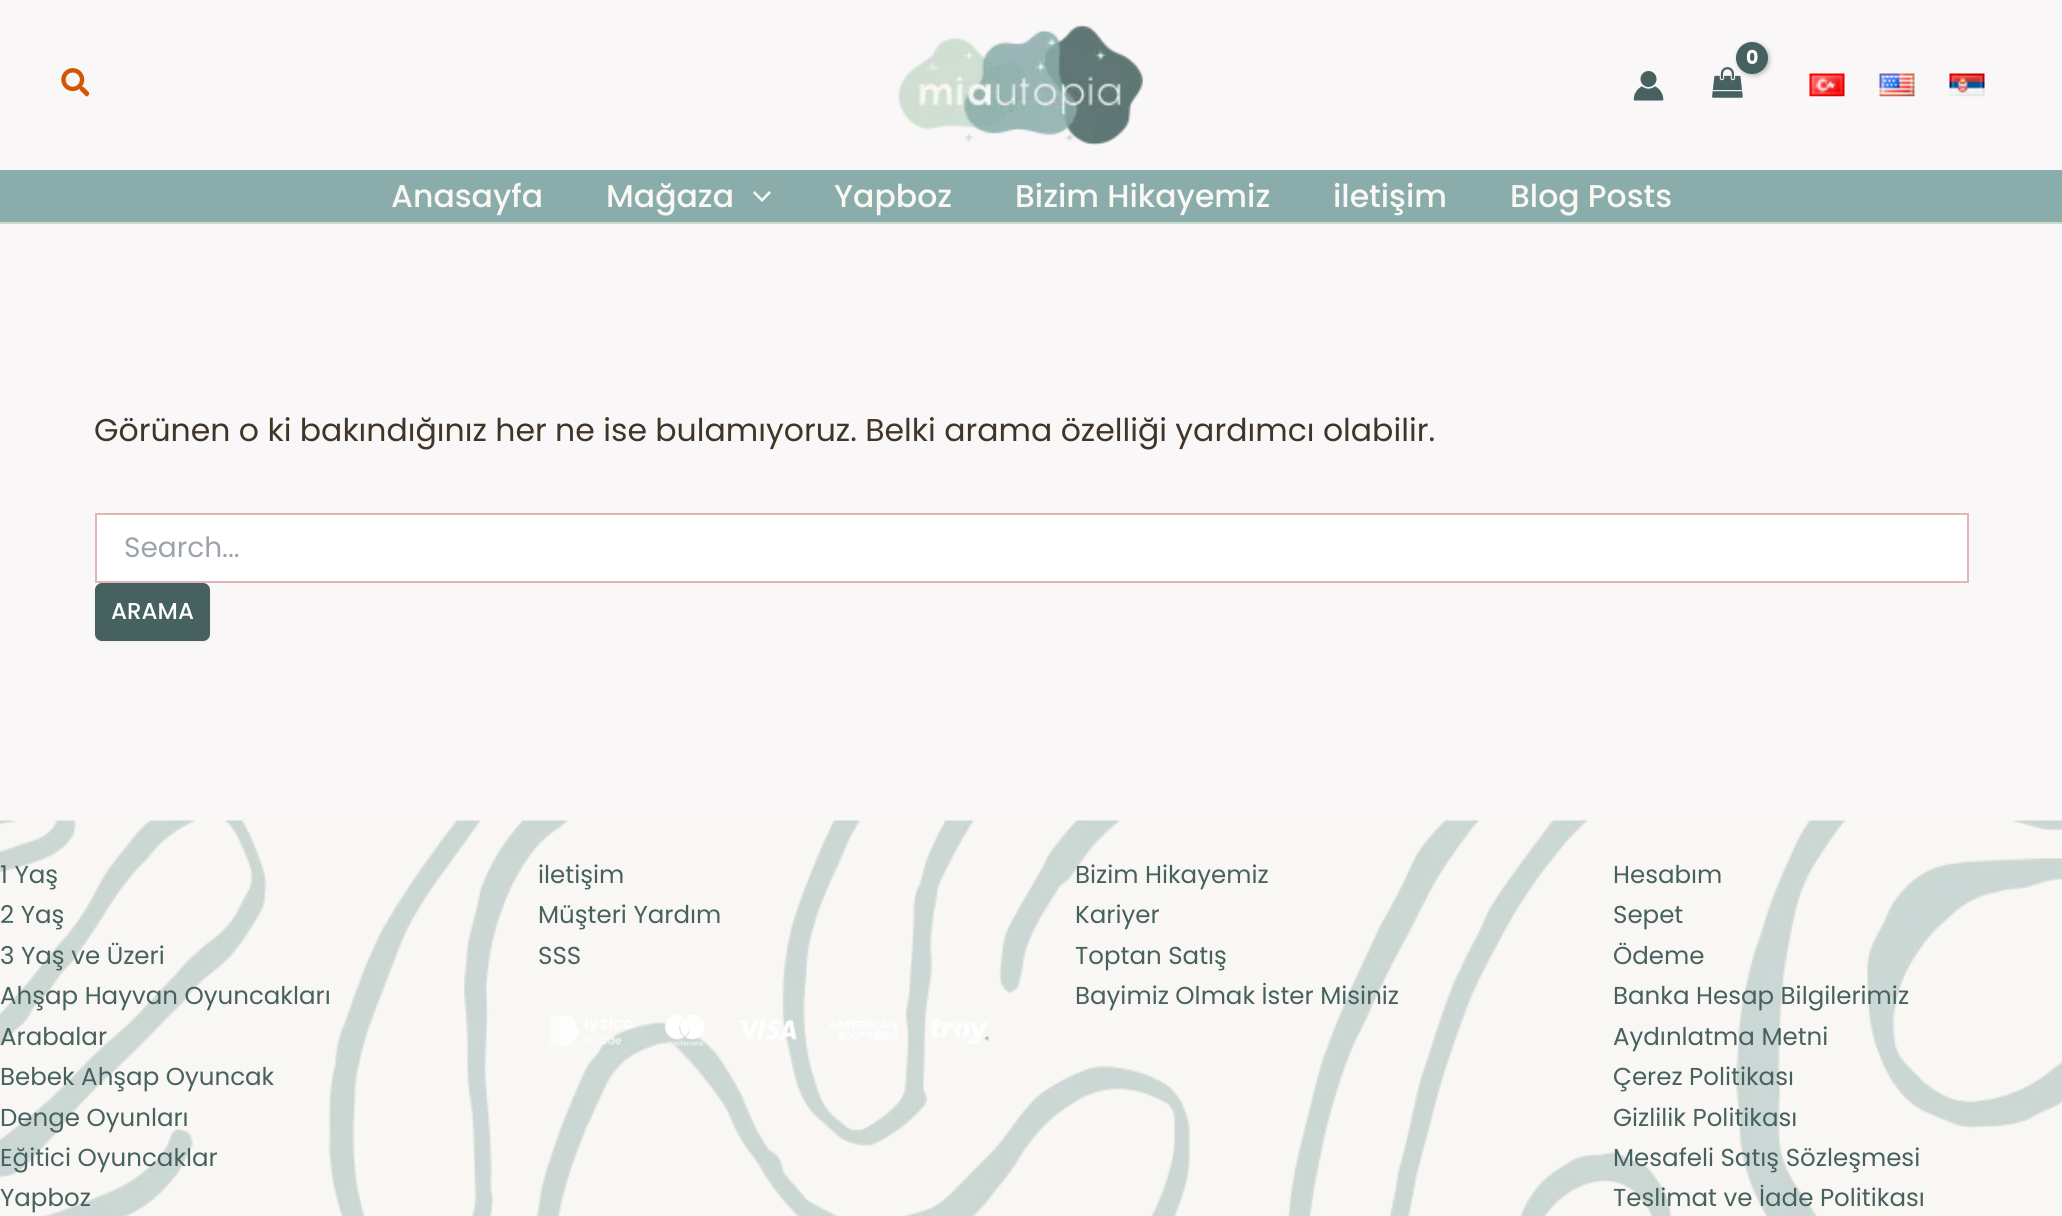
#include <cairo.h>
#include <math.h>
#include <stddef.h>


static void spaced_text(cairo_t *cr, double x, double y, const char *s, double letter, double word) {
    cairo_move_to(cr, x, y);
    while (*s) {
        char ch[5] = {0};
        int n = 0;
        do ch[n++] = *s++; while ((*s & 0xC0) == 0x80);
        cairo_show_text(cr, ch);
        cairo_rel_move_to(cr, letter + word * (*ch == ' '), 0);
    }
}

static void round_rect(cairo_t *cr, double x, double y, double w, double h, double r) {
    cairo_new_sub_path(cr);
    cairo_arc(cr, x + w - r, y + h - r, r, 0, M_PI / 2);
    cairo_arc(cr, x + r, y + h - r, r, M_PI / 2, M_PI);
    cairo_arc(cr, x + r, y + r, r, M_PI, 1.5 * M_PI);
    cairo_arc(cr, x + w - r, y + r, r, 1.5 * M_PI, 2 * M_PI);
    cairo_close_path(cr);
}

static void shadow(cairo_t *cr, double x, double y, double w, double h, double r, double blur, double alpha) {
    cairo_push_group_with_content(cr, CAIRO_CONTENT_ALPHA);
    cairo_set_operator(cr, CAIRO_OPERATOR_SOURCE);
    for (int i = 15; i >= -15 && fmin(w, h) + blur * i / 3 > 0; i -= 2) {
        double e = blur * i / 6;
        cairo_set_source_rgba(cr, 0, 0, 0, alpha * erfc((i - 1) / 8.5) / 2);
        round_rect(cr, x - e, y - e, w + 2 * e, h + 2 * e, fmax(0, fmin(r + e + blur * .6, fmin(w, h) / 2 + e)));
        cairo_fill(cr);
    }
    cairo_pattern_t *soft = cairo_pop_group(cr);
    cairo_mask(cr, soft);
    cairo_pattern_destroy(soft);
}

static void picture(cairo_t *cr, const char *path, double x, double y, double w, double h) {
    cairo_surface_t *image = cairo_image_surface_create_from_png(path);
    cairo_save(cr);
    cairo_set_source_surface(cr, image, x, y);
    cairo_rectangle(cr, x, y, w, h);
    cairo_fill(cr);
    cairo_restore(cr);
    cairo_surface_destroy(image);
}

int main(void) {
    cairo_surface_t *surface = cairo_image_surface_create(CAIRO_FORMAT_RGB24, 2062, 1216);
    cairo_t *cr = cairo_create(surface);
    cairo_font_options_t *options = cairo_font_options_create();
    cairo_font_options_set_hint_metrics(options, CAIRO_HINT_METRICS_OFF);
    cairo_font_options_set_hint_style(options, CAIRO_HINT_STYLE_NONE);
    cairo_set_font_options(cr, options);
    cairo_set_miter_limit(cr, 4);
    cairo_set_source_rgb(cr, 0.976, 0.965, 0.965);
    cairo_paint(cr);
    picture(cr, "img1.png", 898, 24, 245, 122);
    picture(cr, "img2.png", 1712, 67, 31, 31);
    cairo_set_source_rgb(cr, 0, 0, 0);
    shadow(cr, 1738, 44, 31, 31, 15.5, 2.5, 0.3);
    cairo_set_source_rgb(cr, 0.275, 0.38, 0.373);
    cairo_arc(cr, 1752, 58, 16, 0, 2 * M_PI);
    cairo_fill(cr);
    cairo_select_font_face(cr, "Poppins", CAIRO_FONT_SLANT_NORMAL, CAIRO_FONT_WEIGHT_BOLD);
    cairo_set_font_size(cr, 19);
    cairo_set_source_rgb(cr, 1, 1, 1);
    spaced_text(cr, 1746, 64, "0", -1, 0);
    picture(cr, "img3.png", 1633, 71, 31, 30);
    picture(cr, "img4.png", 1809, 73, 36, 24);
    picture(cr, "img5.png", 1879, 73, 36, 24);
    picture(cr, "img6.png", 1949, 73, 36, 24);
    picture(cr, "img7.png", 61, 68, 28, 29);
    cairo_set_source_rgb(cr, 0.541, 0.675, 0.671);
    cairo_rectangle(cr, 0, 170, 2062, 52);
    cairo_fill(cr);
    cairo_set_source_rgb(cr, 0.792, 0.859, 0.804);
    cairo_rectangle(cr, 0, 222, 2062, 2);
    cairo_fill(cr);
    cairo_select_font_face(cr, "Poppins Medium", CAIRO_FONT_SLANT_NORMAL, CAIRO_FONT_WEIGHT_NORMAL);
    cairo_set_font_size(cr, 31.5);
    cairo_set_source_rgb(cr, 0.98, 0.969, 0.953);
    cairo_move_to(cr, 391, 207);
    cairo_show_text(cr, "Anasayfa");
    cairo_move_to(cr, 606, 207);
    cairo_show_text(cr, "Mağaza");
    cairo_new_path(cr);
    cairo_move_to(cr, 753, 193);
    cairo_line_to(cr, 762, 202);
    cairo_line_to(cr, 771, 193);
    cairo_line_to(cr, 769, 191);
    cairo_line_to(cr, 762, 198.5);
    cairo_line_to(cr, 754.5, 191);
    cairo_close_path(cr);
    cairo_fill(cr);
    cairo_move_to(cr, 834, 207);
    cairo_show_text(cr, "Yapboz");
    cairo_move_to(cr, 1015, 207);
    cairo_show_text(cr, "Bizim Hikayemiz");
    cairo_move_to(cr, 1333, 207);
    cairo_show_text(cr, "iletişim");
    cairo_move_to(cr, 1510, 207);
    cairo_show_text(cr, "Blog Posts");
    cairo_select_font_face(cr, "Poppins", CAIRO_FONT_SLANT_NORMAL, CAIRO_FONT_WEIGHT_NORMAL);
    cairo_set_source_rgb(cr, 0.255, 0.208, 0.157);
    cairo_move_to(cr, 94, 441);
    cairo_show_text(cr, "Görünen o ki bakındığınız her ne ise bulamıyoruz. Belki arama özelliği yardımcı olabilir.");
    cairo_set_source_rgb(cr, 1, 1, 1);
    cairo_rectangle(cr, 96, 514, 1872, 68);
    cairo_fill_preserve(cr);
    cairo_set_source_rgb(cr, 0.882, 0.718, 0.706);
    cairo_stroke(cr);
    cairo_set_font_size(cr, 28);
    cairo_set_source_rgb(cr, 0.612, 0.639, 0.686);
    cairo_move_to(cr, 124, 557);
    cairo_show_text(cr, "Search...");
    cairo_set_source_rgb(cr, 0, 0, 0);
    shadow(cr, 95, 585, 115, 57, 7, 2, 0.05);
    cairo_set_source_rgb(cr, 0.275, 0.38, 0.373);
    round_rect(cr, 95, 583, 115, 58, 7);
    cairo_fill(cr);
    cairo_select_font_face(cr, "Poppins Medium", CAIRO_FONT_SLANT_NORMAL, CAIRO_FONT_WEIGHT_NORMAL);
    cairo_set_font_size(cr, 23);
    cairo_set_source_rgb(cr, 1, 1, 1);
    cairo_move_to(cr, 111, 619);
    cairo_show_text(cr, "ARAMA");
    picture(cr, "img8.png", 0, 820, 2062, 396);
    cairo_select_font_face(cr, "Poppins", CAIRO_FONT_SLANT_NORMAL, CAIRO_FONT_WEIGHT_NORMAL);
    cairo_set_font_size(cr, 24.5);
    cairo_set_source_rgb(cr, 0.275, 0.38, 0.373);
    cairo_move_to(cr, 0, 883);
    cairo_show_text(cr, "1 Yaş");
    cairo_move_to(cr, 0, 923);
    cairo_show_text(cr, "2 Yaş");
    cairo_move_to(cr, 0, 964);
    cairo_show_text(cr, "3 Yaş ve Üzeri");
    cairo_move_to(cr, 0, 1004);
    cairo_show_text(cr, "Ahşap Hayvan Oyuncakları");
    cairo_move_to(cr, 0, 1045);
    cairo_show_text(cr, "Arabalar");
    cairo_move_to(cr, 0, 1085);
    cairo_show_text(cr, "Bebek Ahşap Oyuncak");
    cairo_move_to(cr, 0, 1126);
    cairo_show_text(cr, "Denge Oyunları");
    cairo_move_to(cr, 0, 1166);
    cairo_show_text(cr, "Eğitici Oyuncaklar");
    cairo_move_to(cr, 0, 1206);
    cairo_show_text(cr, "Yapboz");
    cairo_move_to(cr, 538, 883);
    cairo_show_text(cr, "iletişim");
    cairo_move_to(cr, 538, 923);
    cairo_show_text(cr, "Müşteri Yardım");
    cairo_move_to(cr, 538, 964);
    cairo_show_text(cr, "SSS");
    picture(cr, "img9.png", 550, 1015, 439, 31);
    cairo_move_to(cr, 1075, 883);
    cairo_show_text(cr, "Bizim Hikayemiz");
    cairo_move_to(cr, 1075, 923);
    cairo_show_text(cr, "Kariyer");
    cairo_move_to(cr, 1075, 964);
    cairo_show_text(cr, "Toptan Satış");
    cairo_move_to(cr, 1075, 1004);
    cairo_show_text(cr, "Bayimiz Olmak İster Misiniz");
    cairo_move_to(cr, 1613, 883);
    cairo_show_text(cr, "Hesabım");
    cairo_move_to(cr, 1613, 923);
    cairo_show_text(cr, "Sepet");
    cairo_move_to(cr, 1613, 964);
    cairo_show_text(cr, "Ödeme");
    cairo_move_to(cr, 1613, 1004);
    cairo_show_text(cr, "Banka Hesap Bilgilerimiz");
    cairo_move_to(cr, 1613, 1045);
    cairo_show_text(cr, "Aydınlatma Metni");
    cairo_move_to(cr, 1613, 1085);
    cairo_show_text(cr, "Çerez Politikası");
    cairo_move_to(cr, 1613, 1126);
    cairo_show_text(cr, "Gizlilik Politikası");
    cairo_move_to(cr, 1613, 1166);
    cairo_show_text(cr, "Mesafeli Satış Sözleşmesi");
    cairo_move_to(cr, 1613, 1206);
    cairo_show_text(cr, "Teslimat ve İade Politikası");
    cairo_surface_write_to_png(surface, "page.png");
    cairo_font_options_destroy(options);
    cairo_destroy(cr);
    cairo_surface_destroy(surface);
    return 0;
}
